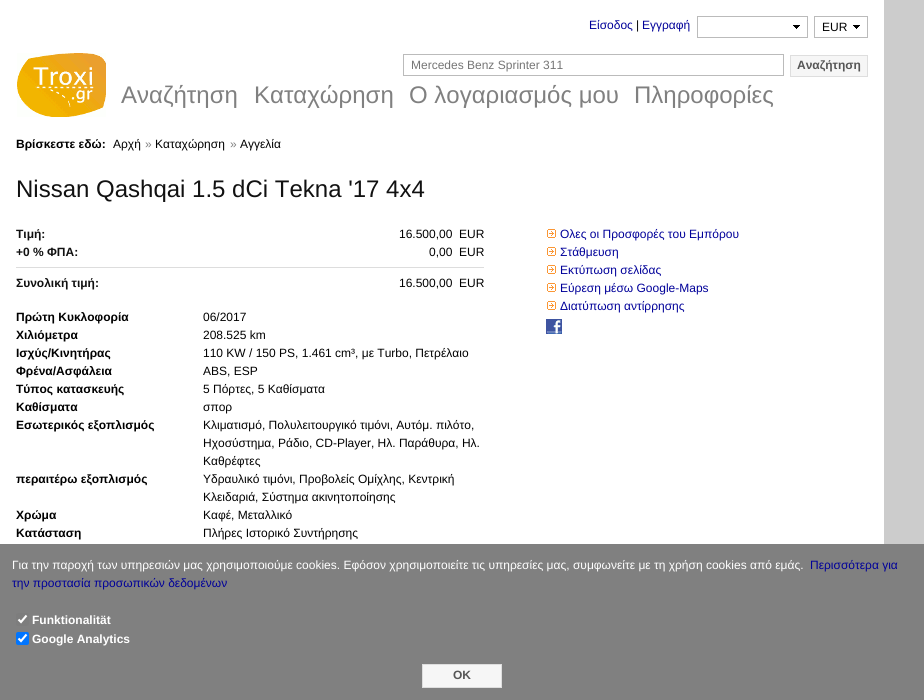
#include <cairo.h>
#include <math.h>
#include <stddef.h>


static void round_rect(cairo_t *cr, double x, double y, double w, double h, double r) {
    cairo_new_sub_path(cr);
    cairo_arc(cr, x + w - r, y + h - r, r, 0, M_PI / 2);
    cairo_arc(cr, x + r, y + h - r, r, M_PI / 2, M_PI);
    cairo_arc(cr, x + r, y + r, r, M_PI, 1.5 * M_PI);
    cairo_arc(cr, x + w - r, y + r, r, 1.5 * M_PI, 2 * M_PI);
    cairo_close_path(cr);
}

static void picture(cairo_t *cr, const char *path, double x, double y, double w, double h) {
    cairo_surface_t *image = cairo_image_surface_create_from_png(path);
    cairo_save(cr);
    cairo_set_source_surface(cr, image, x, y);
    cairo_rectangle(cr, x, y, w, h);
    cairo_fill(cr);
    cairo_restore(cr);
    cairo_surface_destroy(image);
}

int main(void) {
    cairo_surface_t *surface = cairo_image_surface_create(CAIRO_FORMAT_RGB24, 924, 700);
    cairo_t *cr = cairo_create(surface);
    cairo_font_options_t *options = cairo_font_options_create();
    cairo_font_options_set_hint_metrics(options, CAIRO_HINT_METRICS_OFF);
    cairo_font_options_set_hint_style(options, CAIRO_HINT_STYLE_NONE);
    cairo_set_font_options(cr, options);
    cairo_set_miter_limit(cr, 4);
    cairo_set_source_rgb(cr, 0.8, 0.8, 0.8);
    cairo_paint(cr);
    cairo_set_source_rgb(cr, 1, 1, 1);
    cairo_rectangle(cr, 0, 0, 884, 544);
    cairo_fill(cr);
    cairo_select_font_face(cr, "Liberation Sans", CAIRO_FONT_SLANT_NORMAL, CAIRO_FONT_WEIGHT_NORMAL);
    cairo_set_font_size(cr, 12);
    cairo_set_source_rgb(cr, 0, 0, 0.6);
    cairo_move_to(cr, 589, 29);
    cairo_show_text(cr, "Είσοδος");
    cairo_set_source_rgb(cr, 0, 0, 0);
    cairo_move_to(cr, 636, 29);
    cairo_show_text(cr, "|");
    cairo_set_source_rgb(cr, 0, 0, 0.6);
    cairo_move_to(cr, 642, 29);
    cairo_show_text(cr, "Εγγραφή");
    picture(cr, "img1.png", 793, 25, 7, 4);
    cairo_rectangle(cr, 697.5, 16.5, 110, 21);
    cairo_set_source_rgb(cr, 0.733, 0.733, 0.733);
    cairo_set_line_width(cr, 1);
    cairo_stroke(cr);
    picture(cr, "img1.png", 853, 25, 7, 4);
    cairo_rectangle(cr, 814.5, 16.5, 53, 21);
    cairo_stroke(cr);
    cairo_set_source_rgb(cr, 0, 0, 0);
    cairo_move_to(cr, 822, 31);
    cairo_show_text(cr, "EUR");
    cairo_rectangle(cr, 403.5, 54.5, 380, 21);
    cairo_set_source_rgb(cr, 0.733, 0.733, 0.733);
    cairo_stroke(cr);
    cairo_set_source_rgb(cr, 0.459, 0.459, 0.459);
    cairo_move_to(cr, 411, 69);
    cairo_show_text(cr, "Mercedes Benz Sprinter 311");
    cairo_set_source_rgb(cr, 0.961, 0.961, 0.961);
    cairo_rectangle(cr, 790.5, 55.5, 77, 21);
    cairo_fill_preserve(cr);
    cairo_set_source_rgb(cr, 0.871, 0.871, 0.871);
    cairo_stroke(cr);
    cairo_select_font_face(cr, "Liberation Sans", CAIRO_FONT_SLANT_NORMAL, CAIRO_FONT_WEIGHT_BOLD);
    cairo_set_source_rgb(cr, 0.337, 0.337, 0.337);
    cairo_move_to(cr, 797, 69);
    cairo_show_text(cr, "Αναζήτηση");
    picture(cr, "img2.png", 17, 53, 89, 64);
    cairo_select_font_face(cr, "Liberation Sans", CAIRO_FONT_SLANT_NORMAL, CAIRO_FONT_WEIGHT_NORMAL);
    cairo_set_font_size(cr, 24);
    cairo_set_source_rgb(cr, 0.502, 0.502, 0.502);
    cairo_move_to(cr, 121, 103);
    cairo_show_text(cr, "Αναζήτηση");
    cairo_move_to(cr, 254, 103);
    cairo_show_text(cr, "Καταχώρηση");
    cairo_move_to(cr, 409, 103);
    cairo_show_text(cr, "Ο λογαριασμός μου");
    cairo_move_to(cr, 634, 103);
    cairo_show_text(cr, "Πληροφορίες");
    cairo_select_font_face(cr, "Liberation Sans", CAIRO_FONT_SLANT_NORMAL, CAIRO_FONT_WEIGHT_BOLD);
    cairo_set_font_size(cr, 12);
    cairo_set_source_rgb(cr, 0, 0, 0);
    cairo_move_to(cr, 16, 148);
    cairo_show_text(cr, "Βρίσκεστε εδώ:");
    cairo_select_font_face(cr, "Liberation Sans", CAIRO_FONT_SLANT_NORMAL, CAIRO_FONT_WEIGHT_NORMAL);
    cairo_move_to(cr, 113, 148);
    cairo_show_text(cr, "Αρχή");
    cairo_set_source_rgb(cr, 0.502, 0.502, 0.502);
    cairo_move_to(cr, 145, 148);
    cairo_show_text(cr, "»");
    cairo_set_source_rgb(cr, 0, 0, 0);
    cairo_move_to(cr, 155, 148);
    cairo_show_text(cr, "Καταχώρηση");
    cairo_set_source_rgb(cr, 0.502, 0.502, 0.502);
    cairo_move_to(cr, 230, 148);
    cairo_show_text(cr, "»");
    cairo_set_source_rgb(cr, 0, 0, 0);
    cairo_move_to(cr, 240, 148);
    cairo_show_text(cr, "Αγγελία");
    cairo_set_font_size(cr, 24);
    cairo_set_source_rgb(cr, 0.067, 0.067, 0.067);
    cairo_move_to(cr, 16, 197);
    cairo_show_text(cr, "Nissan Qashqai 1.5 dCi Tekna '17 4x4");
    cairo_select_font_face(cr, "Liberation Sans", CAIRO_FONT_SLANT_NORMAL, CAIRO_FONT_WEIGHT_BOLD);
    cairo_set_font_size(cr, 12);
    cairo_move_to(cr, 16, 238);
    cairo_show_text(cr, "Τιμή:");
    cairo_select_font_face(cr, "Liberation Sans", CAIRO_FONT_SLANT_NORMAL, CAIRO_FONT_WEIGHT_NORMAL);
    cairo_set_source_rgb(cr, 0, 0, 0);
    cairo_move_to(cr, 399, 238);
    cairo_show_text(cr, "16.500,00  EUR");
    cairo_select_font_face(cr, "Liberation Sans", CAIRO_FONT_SLANT_NORMAL, CAIRO_FONT_WEIGHT_BOLD);
    cairo_set_source_rgb(cr, 0.067, 0.067, 0.067);
    cairo_move_to(cr, 16, 256);
    cairo_show_text(cr, "+0 % ΦΠΑ:");
    cairo_select_font_face(cr, "Liberation Sans", CAIRO_FONT_SLANT_NORMAL, CAIRO_FONT_WEIGHT_NORMAL);
    cairo_set_source_rgb(cr, 0, 0, 0);
    cairo_move_to(cr, 429, 256);
    cairo_show_text(cr, "0,00  EUR");
    cairo_set_source_rgb(cr, 0.867, 0.867, 0.867);
    cairo_rectangle(cr, 16, 267, 468, 1);
    cairo_fill(cr);
    cairo_select_font_face(cr, "Liberation Sans", CAIRO_FONT_SLANT_NORMAL, CAIRO_FONT_WEIGHT_BOLD);
    cairo_set_source_rgb(cr, 0.067, 0.067, 0.067);
    cairo_move_to(cr, 16, 287);
    cairo_show_text(cr, "Συνολική τιμή:");
    cairo_select_font_face(cr, "Liberation Sans", CAIRO_FONT_SLANT_NORMAL, CAIRO_FONT_WEIGHT_NORMAL);
    cairo_set_source_rgb(cr, 0, 0, 0);
    cairo_move_to(cr, 399, 287);
    cairo_show_text(cr, "16.500,00  EUR");
    cairo_select_font_face(cr, "Liberation Sans", CAIRO_FONT_SLANT_NORMAL, CAIRO_FONT_WEIGHT_BOLD);
    cairo_move_to(cr, 16, 321);
    cairo_show_text(cr, "Πρώτη Κυκλοφορία");
    cairo_select_font_face(cr, "Liberation Sans", CAIRO_FONT_SLANT_NORMAL, CAIRO_FONT_WEIGHT_NORMAL);
    cairo_move_to(cr, 203, 321);
    cairo_show_text(cr, "06/2017");
    cairo_select_font_face(cr, "Liberation Sans", CAIRO_FONT_SLANT_NORMAL, CAIRO_FONT_WEIGHT_BOLD);
    cairo_move_to(cr, 16, 339);
    cairo_show_text(cr, "Χιλιόμετρα");
    cairo_select_font_face(cr, "Liberation Sans", CAIRO_FONT_SLANT_NORMAL, CAIRO_FONT_WEIGHT_NORMAL);
    cairo_move_to(cr, 203, 339);
    cairo_show_text(cr, "208.525 km");
    cairo_select_font_face(cr, "Liberation Sans", CAIRO_FONT_SLANT_NORMAL, CAIRO_FONT_WEIGHT_BOLD);
    cairo_move_to(cr, 16, 357);
    cairo_show_text(cr, "Ισχύς/Κινητήρας");
    cairo_select_font_face(cr, "Liberation Sans", CAIRO_FONT_SLANT_NORMAL, CAIRO_FONT_WEIGHT_NORMAL);
    cairo_move_to(cr, 203, 357);
    cairo_show_text(cr, "110 KW / 150 PS, 1.461 cm³, με Turbo, Πετρέλαιο");
    cairo_select_font_face(cr, "Liberation Sans", CAIRO_FONT_SLANT_NORMAL, CAIRO_FONT_WEIGHT_BOLD);
    cairo_move_to(cr, 16, 375);
    cairo_show_text(cr, "Φρένα/Ασφάλεια");
    cairo_select_font_face(cr, "Liberation Sans", CAIRO_FONT_SLANT_NORMAL, CAIRO_FONT_WEIGHT_NORMAL);
    cairo_move_to(cr, 203, 375);
    cairo_show_text(cr, "ABS, ESP");
    cairo_select_font_face(cr, "Liberation Sans", CAIRO_FONT_SLANT_NORMAL, CAIRO_FONT_WEIGHT_BOLD);
    cairo_move_to(cr, 16, 393);
    cairo_show_text(cr, "Τύπος κατασκευής");
    cairo_select_font_face(cr, "Liberation Sans", CAIRO_FONT_SLANT_NORMAL, CAIRO_FONT_WEIGHT_NORMAL);
    cairo_move_to(cr, 203, 393);
    cairo_show_text(cr, "5 Πόρτες, 5 Καθίσματα");
    cairo_select_font_face(cr, "Liberation Sans", CAIRO_FONT_SLANT_NORMAL, CAIRO_FONT_WEIGHT_BOLD);
    cairo_move_to(cr, 16, 411);
    cairo_show_text(cr, "Καθίσματα");
    cairo_select_font_face(cr, "Liberation Sans", CAIRO_FONT_SLANT_NORMAL, CAIRO_FONT_WEIGHT_NORMAL);
    cairo_move_to(cr, 203, 411);
    cairo_show_text(cr, "σπορ");
    cairo_select_font_face(cr, "Liberation Sans", CAIRO_FONT_SLANT_NORMAL, CAIRO_FONT_WEIGHT_BOLD);
    cairo_move_to(cr, 16, 429);
    cairo_show_text(cr, "Εσωτερικός εξοπλισμός");
    cairo_select_font_face(cr, "Liberation Sans", CAIRO_FONT_SLANT_NORMAL, CAIRO_FONT_WEIGHT_NORMAL);
    cairo_move_to(cr, 203, 429);
    cairo_show_text(cr, "Κλιματισμό, Πολυλειτουργικό τιμόνι, Αυτόμ. πιλότο,");
    cairo_move_to(cr, 203, 447);
    cairo_show_text(cr, "Ηχοσύστημα, Ράδιο, CD-Player, Ηλ. Παράθυρα, Ηλ.");
    cairo_move_to(cr, 203, 465);
    cairo_show_text(cr, "Καθρέφτες");
    cairo_select_font_face(cr, "Liberation Sans", CAIRO_FONT_SLANT_NORMAL, CAIRO_FONT_WEIGHT_BOLD);
    cairo_move_to(cr, 16, 483);
    cairo_show_text(cr, "περαιτέρω εξοπλισμός");
    cairo_select_font_face(cr, "Liberation Sans", CAIRO_FONT_SLANT_NORMAL, CAIRO_FONT_WEIGHT_NORMAL);
    cairo_move_to(cr, 203, 483);
    cairo_show_text(cr, "Υδραυλικό τιμόνι, Προβολείς Ομίχλης, Κεντρική");
    cairo_move_to(cr, 203, 501);
    cairo_show_text(cr, "Κλειδαριά, Σύστημα ακινητοποίησης");
    cairo_select_font_face(cr, "Liberation Sans", CAIRO_FONT_SLANT_NORMAL, CAIRO_FONT_WEIGHT_BOLD);
    cairo_move_to(cr, 16, 519);
    cairo_show_text(cr, "Χρώμα");
    cairo_select_font_face(cr, "Liberation Sans", CAIRO_FONT_SLANT_NORMAL, CAIRO_FONT_WEIGHT_NORMAL);
    cairo_move_to(cr, 203, 519);
    cairo_show_text(cr, "Καφέ, Μεταλλικό");
    cairo_select_font_face(cr, "Liberation Sans", CAIRO_FONT_SLANT_NORMAL, CAIRO_FONT_WEIGHT_BOLD);
    cairo_move_to(cr, 16, 537);
    cairo_show_text(cr, "Κατάσταση");
    cairo_select_font_face(cr, "Liberation Sans", CAIRO_FONT_SLANT_NORMAL, CAIRO_FONT_WEIGHT_NORMAL);
    cairo_move_to(cr, 203, 537);
    cairo_show_text(cr, "Πλήρες Ιστορικό Συντήρησης");
    picture(cr, "img3.png", 547, 229, 9, 9);
    cairo_set_source_rgb(cr, 0, 0, 0.6);
    cairo_move_to(cr, 560, 238);
    cairo_show_text(cr, "Ολες οι Προσφορές του Εμπόρου");
    picture(cr, "img3.png", 547, 247, 9, 9);
    cairo_move_to(cr, 560, 256);
    cairo_show_text(cr, "Στάθμευση");
    picture(cr, "img3.png", 547, 265, 9, 9);
    cairo_move_to(cr, 560, 274);
    cairo_show_text(cr, "Εκτύπωση σελίδας");
    picture(cr, "img3.png", 547, 283, 9, 9);
    cairo_move_to(cr, 560, 292);
    cairo_show_text(cr, "Εύρεση μέσω Google-Maps");
    picture(cr, "img3.png", 547, 301, 9, 9);
    cairo_move_to(cr, 560, 310);
    cairo_show_text(cr, "Διατύπωση αντίρρησης");
    picture(cr, "img4.png", 546, 319, 16, 15);
    cairo_set_source_rgb(cr, 0.502, 0.502, 0.502);
    cairo_rectangle(cr, 0, 544, 924, 156);
    cairo_fill(cr);
    cairo_set_source_rgb(cr, 1, 1, 1);
    cairo_move_to(cr, 12, 569);
    cairo_show_text(cr, "Για την παροχή των υπηρεσιών μας χρησιμοποιούμε cookies. Εφόσον χρησιμοποιείτε τις υπηρεσίες μας, συμφωνείτε με τη χρήση cookies από εμάς.");
    cairo_set_source_rgb(cr, 0, 0, 0.6);
    cairo_move_to(cr, 810, 569);
    cairo_show_text(cr, "Περισσότερα για");
    cairo_move_to(cr, 12, 587);
    cairo_show_text(cr, "την προστασία προσωπικών δεδομένων");
    cairo_set_source_rgb(cr, 0.49, 0.49, 0.49);
    round_rect(cr, 16, 613, 13, 13, 2);
    cairo_fill(cr);
    cairo_new_path(cr);
    cairo_move_to(cr, 18.5, 619.5);
    cairo_line_to(cr, 21, 622);
    cairo_line_to(cr, 26.5, 615.5);
    cairo_set_source_rgb(cr, 1, 1, 1);
    cairo_set_line_width(cr, 2.1);
    cairo_stroke(cr);
    cairo_select_font_face(cr, "Liberation Sans", CAIRO_FONT_SLANT_NORMAL, CAIRO_FONT_WEIGHT_BOLD);
    cairo_move_to(cr, 32, 624);
    cairo_show_text(cr, "Funktionalität");
    cairo_set_source_rgb(cr, 0, 0.459, 1);
    round_rect(cr, 16, 632, 13, 13, 2);
    cairo_fill(cr);
    cairo_new_path(cr);
    cairo_move_to(cr, 18.5, 638.5);
    cairo_line_to(cr, 21, 641);
    cairo_line_to(cr, 26.5, 634.5);
    cairo_set_source_rgb(cr, 1, 1, 1);
    cairo_stroke(cr);
    cairo_move_to(cr, 32, 643);
    cairo_show_text(cr, "Google Analytics");
    cairo_set_source_rgb(cr, 0.961, 0.961, 0.961);
    cairo_rectangle(cr, 422.5, 664.5, 79, 23);
    cairo_fill_preserve(cr);
    cairo_set_source_rgb(cr, 0.871, 0.871, 0.871);
    cairo_set_line_width(cr, 1);
    cairo_stroke(cr);
    cairo_set_source_rgb(cr, 0.337, 0.337, 0.337);
    cairo_move_to(cr, 453, 679);
    cairo_show_text(cr, "OK");
    cairo_surface_write_to_png(surface, "page.png");
    cairo_font_options_destroy(options);
    cairo_destroy(cr);
    cairo_surface_destroy(surface);
    return 0;
}
